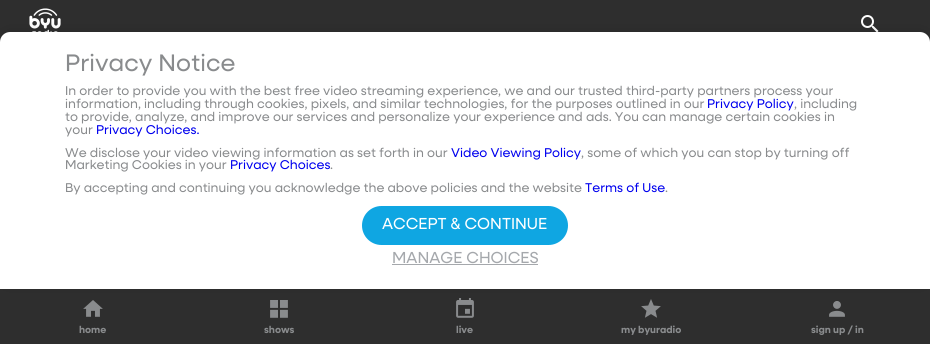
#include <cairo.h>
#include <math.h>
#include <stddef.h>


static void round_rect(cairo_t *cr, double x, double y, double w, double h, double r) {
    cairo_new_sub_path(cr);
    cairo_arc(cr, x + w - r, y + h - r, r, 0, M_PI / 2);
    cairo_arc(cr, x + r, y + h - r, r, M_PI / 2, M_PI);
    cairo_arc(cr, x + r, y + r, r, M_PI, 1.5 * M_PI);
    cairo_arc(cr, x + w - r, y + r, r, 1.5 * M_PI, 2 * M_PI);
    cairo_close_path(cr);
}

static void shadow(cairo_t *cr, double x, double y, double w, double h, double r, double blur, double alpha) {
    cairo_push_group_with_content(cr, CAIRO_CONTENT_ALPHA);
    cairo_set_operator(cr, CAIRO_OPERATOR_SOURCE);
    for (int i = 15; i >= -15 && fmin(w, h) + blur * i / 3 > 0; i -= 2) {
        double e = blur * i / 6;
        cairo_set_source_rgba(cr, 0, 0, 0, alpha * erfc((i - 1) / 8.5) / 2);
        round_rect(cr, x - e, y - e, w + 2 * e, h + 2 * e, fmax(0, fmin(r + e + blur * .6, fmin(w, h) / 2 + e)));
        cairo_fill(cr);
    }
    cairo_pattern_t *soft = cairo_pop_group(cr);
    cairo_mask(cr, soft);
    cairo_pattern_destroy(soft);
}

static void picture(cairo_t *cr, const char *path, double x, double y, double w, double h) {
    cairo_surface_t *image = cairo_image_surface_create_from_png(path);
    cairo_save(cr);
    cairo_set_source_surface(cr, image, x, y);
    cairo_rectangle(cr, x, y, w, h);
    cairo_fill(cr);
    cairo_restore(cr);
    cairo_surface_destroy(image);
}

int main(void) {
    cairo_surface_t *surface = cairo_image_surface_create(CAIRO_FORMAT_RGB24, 930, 344);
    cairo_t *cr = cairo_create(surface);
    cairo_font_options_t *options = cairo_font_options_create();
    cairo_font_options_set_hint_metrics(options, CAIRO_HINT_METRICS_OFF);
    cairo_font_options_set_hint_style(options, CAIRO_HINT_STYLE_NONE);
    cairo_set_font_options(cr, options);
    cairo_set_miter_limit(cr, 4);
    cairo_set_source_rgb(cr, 0.18, 0.18, 0.18);
    cairo_paint(cr);
    picture(cr, "img1.png", 29, 8, 32, 24);
    picture(cr, "img2.png", 861, 15, 18, 17);
    picture(cr, "img3.png", 83, 300, 20, 17);
    picture(cr, "img4.png", 270, 300, 18, 18);
    picture(cr, "img5.png", 456, 298, 18, 20);
    picture(cr, "img6.png", 641, 299, 20, 19);
    picture(cr, "img7.png", 829, 301, 16, 16);
    cairo_set_source_rgb(cr, 0, 0, 0);
    shadow(cr, 0, 30, 930, 257, 10, 5, 0.1);
    cairo_set_source_rgb(cr, 1, 1, 1);
    cairo_new_path(cr);
    cairo_move_to(cr, 10, 32);
    cairo_line_to(cr, 920, 32);
    cairo_curve_to(cr, 925.5, 32, 930, 36.5, 930, 42);
    cairo_line_to(cr, 930, 289);
    cairo_line_to(cr, 0, 289);
    cairo_line_to(cr, 0, 42);
    cairo_curve_to(cr, 0, 36.5, 4.5, 32, 10, 32);
    cairo_close_path(cr);
    cairo_fill(cr);
    cairo_select_font_face(cr, "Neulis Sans", CAIRO_FONT_SLANT_NORMAL, CAIRO_FONT_WEIGHT_NORMAL);
    cairo_set_font_size(cr, 24);
    cairo_set_source_rgb(cr, 0.537, 0.545, 0.553);
    cairo_move_to(cr, 65, 71);
    cairo_show_text(cr, "Privacy Notice");
    cairo_set_font_size(cr, 12.8);
    cairo_move_to(cr, 65, 95);
    cairo_show_text(cr, "In order to provide you with the best free video streaming experience, we and our trusted third-party partners process your");
    cairo_move_to(cr, 65, 108);
    cairo_show_text(cr, "information, including through cookies, pixels, and similar technologies, for the purposes outlined in our");
    cairo_set_source_rgb(cr, 0, 0, 0.933);
    cairo_move_to(cr, 707, 108);
    cairo_show_text(cr, "Privacy Policy");
    cairo_set_source_rgb(cr, 0.537, 0.545, 0.553);
    cairo_move_to(cr, 794, 108);
    cairo_show_text(cr, ", including");
    cairo_move_to(cr, 65, 121);
    cairo_show_text(cr, "to provide, analyze, and improve our services and personalize your experience and ads. You can manage certain cookies in");
    cairo_move_to(cr, 65, 134);
    cairo_show_text(cr, "your");
    cairo_set_source_rgb(cr, 0, 0, 0.933);
    cairo_move_to(cr, 96, 134);
    cairo_show_text(cr, "Privacy Choices.");
    cairo_set_source_rgb(cr, 0.537, 0.545, 0.553);
    cairo_move_to(cr, 65, 157);
    cairo_show_text(cr, "We disclose your video viewing information as set forth in our");
    cairo_set_source_rgb(cr, 0, 0, 0.933);
    cairo_move_to(cr, 451, 157);
    cairo_show_text(cr, "Video Viewing Policy");
    cairo_set_source_rgb(cr, 0.537, 0.545, 0.553);
    cairo_move_to(cr, 581, 157);
    cairo_show_text(cr, ", some of which you can stop by turning off");
    cairo_move_to(cr, 65, 169);
    cairo_show_text(cr, "Marketing Cookies in your");
    cairo_set_source_rgb(cr, 0, 0, 0.933);
    cairo_move_to(cr, 230, 169);
    cairo_show_text(cr, "Privacy Choices");
    cairo_set_source_rgb(cr, 0.537, 0.545, 0.553);
    cairo_move_to(cr, 330, 169);
    cairo_show_text(cr, ".");
    cairo_move_to(cr, 65, 192);
    cairo_show_text(cr, "By accepting and continuing you acknowledge the above policies and the website");
    cairo_set_source_rgb(cr, 0, 0, 0.933);
    cairo_move_to(cr, 585, 192);
    cairo_show_text(cr, "Terms of Use");
    cairo_set_source_rgb(cr, 0.537, 0.545, 0.553);
    cairo_move_to(cr, 665, 192);
    cairo_show_text(cr, ".");
    cairo_set_source_rgb(cr, 0.059, 0.651, 0.886);
    round_rect(cr, 362, 206, 206, 39, 19.5);
    cairo_fill(cr);
    cairo_set_font_size(cr, 16);
    cairo_set_source_rgb(cr, 1, 1, 1);
    cairo_move_to(cr, 382, 229);
    cairo_show_text(cr, "ACCEPT & CONTINUE");
    cairo_set_source_rgb(cr, 0.647, 0.659, 0.675);
    cairo_move_to(cr, 392, 263);
    cairo_show_text(cr, "MANAGE CHOICES");
    cairo_rectangle(cr, 392, 264, 146, 1);
    cairo_fill(cr);
    cairo_select_font_face(cr, "Neulis Sans", CAIRO_FONT_SLANT_NORMAL, CAIRO_FONT_WEIGHT_BOLD);
    cairo_set_font_size(cr, 10);
    cairo_set_source_rgb(cr, 0.537, 0.545, 0.553);
    cairo_move_to(cr, 79, 333);
    cairo_show_text(cr, "home");
    cairo_move_to(cr, 264, 333);
    cairo_show_text(cr, "shows");
    cairo_move_to(cr, 456, 333);
    cairo_show_text(cr, "live");
    cairo_move_to(cr, 621, 333);
    cairo_show_text(cr, "my byuradio");
    cairo_move_to(cr, 811, 333);
    cairo_show_text(cr, "sign up / in");
    cairo_surface_write_to_png(surface, "page.png");
    cairo_font_options_destroy(options);
    cairo_destroy(cr);
    cairo_surface_destroy(surface);
    return 0;
}
